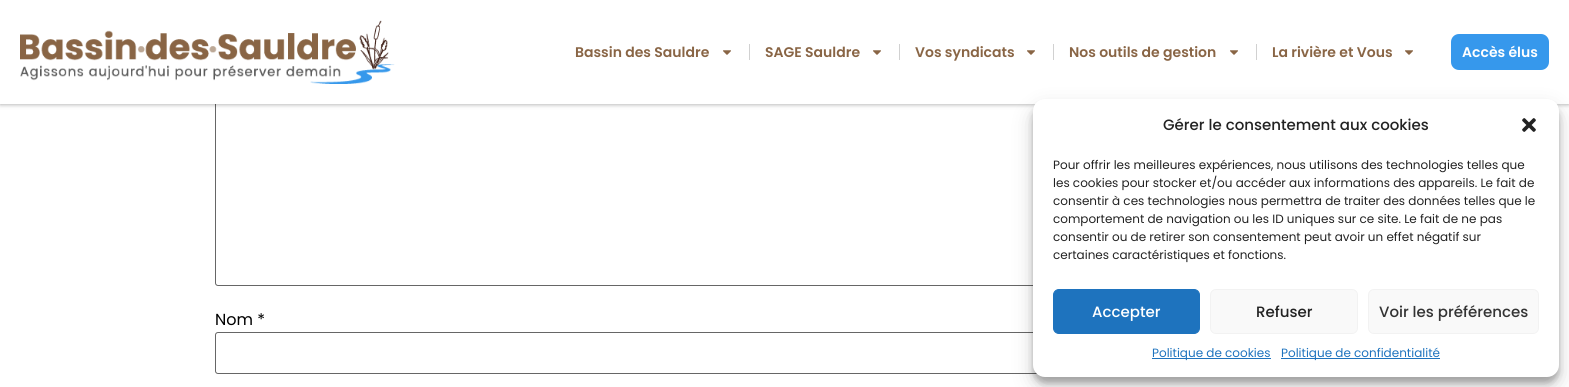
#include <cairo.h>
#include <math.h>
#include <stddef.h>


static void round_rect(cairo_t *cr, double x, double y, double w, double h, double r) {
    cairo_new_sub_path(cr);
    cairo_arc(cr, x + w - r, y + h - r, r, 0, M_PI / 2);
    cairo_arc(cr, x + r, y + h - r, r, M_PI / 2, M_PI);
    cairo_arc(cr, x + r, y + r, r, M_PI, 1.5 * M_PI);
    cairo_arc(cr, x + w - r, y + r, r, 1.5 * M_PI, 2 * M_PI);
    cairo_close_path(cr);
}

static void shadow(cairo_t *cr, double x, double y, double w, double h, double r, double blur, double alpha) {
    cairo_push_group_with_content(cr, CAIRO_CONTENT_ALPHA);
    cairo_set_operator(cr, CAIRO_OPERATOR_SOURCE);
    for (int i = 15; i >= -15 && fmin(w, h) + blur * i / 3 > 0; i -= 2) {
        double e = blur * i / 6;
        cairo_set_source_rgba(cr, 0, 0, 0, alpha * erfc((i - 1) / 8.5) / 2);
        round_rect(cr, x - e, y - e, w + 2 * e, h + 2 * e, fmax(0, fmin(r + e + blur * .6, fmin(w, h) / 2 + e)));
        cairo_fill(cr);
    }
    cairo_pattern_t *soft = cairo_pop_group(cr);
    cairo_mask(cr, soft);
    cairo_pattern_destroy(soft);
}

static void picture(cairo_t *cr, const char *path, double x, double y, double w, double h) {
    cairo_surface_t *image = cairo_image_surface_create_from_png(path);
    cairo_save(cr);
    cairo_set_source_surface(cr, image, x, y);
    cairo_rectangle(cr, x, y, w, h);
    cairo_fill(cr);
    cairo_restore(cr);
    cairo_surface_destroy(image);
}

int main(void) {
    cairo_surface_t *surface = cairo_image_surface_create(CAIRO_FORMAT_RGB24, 1569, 387);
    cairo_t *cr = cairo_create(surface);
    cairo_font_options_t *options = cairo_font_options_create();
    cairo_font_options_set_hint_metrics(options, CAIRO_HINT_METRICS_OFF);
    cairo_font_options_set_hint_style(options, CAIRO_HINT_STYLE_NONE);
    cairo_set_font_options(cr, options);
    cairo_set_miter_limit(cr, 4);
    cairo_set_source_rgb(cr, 1, 1, 1);
    cairo_paint(cr);
    round_rect(cr, 215.5, 76.5, 1139, 209, 2.5);
    cairo_set_source_rgb(cr, 0.4, 0.4, 0.4);
    cairo_set_line_width(cr, 1);
    cairo_stroke(cr);
    cairo_set_source_rgb(cr, 0, 0, 0);
    shadow(cr, 0, 0, 1569, 104, 0, 2.5, 0.4);
    cairo_set_source_rgb(cr, 1, 1, 1);
    cairo_rectangle(cr, 0, 0, 1569, 104);
    cairo_fill(cr);
    picture(cr, "img1.png", 20, 20, 375, 64);
    cairo_select_font_face(cr, "Poppins SemiBold", CAIRO_FONT_SLANT_NORMAL, CAIRO_FONT_WEIGHT_NORMAL);
    cairo_set_font_size(cr, 14);
    cairo_set_source_rgb(cr, 0.537, 0.396, 0.271);
    cairo_move_to(cr, 575, 57);
    cairo_show_text(cr, "Bassin des Sauldre");
    picture(cr, "img2.png", 723, 50, 8, 5);
    cairo_set_source_rgb(cr, 0.82, 0.82, 0.82);
    cairo_rectangle(cr, 749, 44, 1, 16);
    cairo_fill(cr);
    cairo_set_source_rgb(cr, 0.537, 0.396, 0.271);
    cairo_move_to(cr, 765, 57);
    cairo_show_text(cr, "SAGE Sauldre");
    picture(cr, "img2.png", 873, 50, 8, 5);
    cairo_set_source_rgb(cr, 0.82, 0.82, 0.82);
    cairo_rectangle(cr, 899, 44, 1, 16);
    cairo_fill(cr);
    cairo_set_source_rgb(cr, 0.537, 0.396, 0.271);
    cairo_move_to(cr, 915, 57);
    cairo_show_text(cr, "Vos syndicats");
    picture(cr, "img2.png", 1027, 50, 8, 5);
    cairo_set_source_rgb(cr, 0.82, 0.82, 0.82);
    cairo_rectangle(cr, 1053, 44, 1, 16);
    cairo_fill(cr);
    cairo_set_source_rgb(cr, 0.537, 0.396, 0.271);
    cairo_move_to(cr, 1069, 57);
    cairo_show_text(cr, "Nos outils de gestion");
    picture(cr, "img2.png", 1230, 50, 8, 5);
    cairo_set_source_rgb(cr, 0.82, 0.82, 0.82);
    cairo_rectangle(cr, 1256, 44, 1, 16);
    cairo_fill(cr);
    cairo_set_source_rgb(cr, 0.537, 0.396, 0.271);
    cairo_move_to(cr, 1272, 57);
    cairo_show_text(cr, "La rivière et Vous");
    picture(cr, "img2.png", 1405, 50, 8, 5);
    cairo_set_source_rgb(cr, 0.212, 0.596, 0.922);
    round_rect(cr, 1451, 34, 98, 36, 8);
    cairo_fill(cr);
    cairo_set_source_rgb(cr, 1, 1, 1);
    cairo_move_to(cr, 1462, 57);
    cairo_show_text(cr, "Accès élus");
    cairo_select_font_face(cr, "Poppins", CAIRO_FONT_SLANT_NORMAL, CAIRO_FONT_WEIGHT_NORMAL);
    cairo_set_font_size(cr, 16);
    cairo_set_source_rgb(cr, 0, 0, 0);
    cairo_move_to(cr, 215, 325);
    cairo_show_text(cr, "Nom *");
    round_rect(cr, 215.5, 332.5, 1139, 41, 2.5);
    cairo_set_source_rgb(cr, 0.4, 0.4, 0.4);
    cairo_stroke(cr);
    cairo_set_source_rgb(cr, 0, 0, 0);
    shadow(cr, 1033, 105, 526, 278, 12, 3, 0.23);
    shadow(cr, 1033, 109, 526, 278, 12, 10, 0.19);
    cairo_set_source_rgb(cr, 1, 1, 1);
    round_rect(cr, 1033, 99, 526, 278, 12);
    cairo_fill(cr);
    cairo_select_font_face(cr, "Poppins Medium", CAIRO_FONT_SLANT_NORMAL, CAIRO_FONT_WEIGHT_NORMAL);
    cairo_set_font_size(cr, 15);
    cairo_set_source_rgb(cr, 0.133, 0.133, 0.133);
    cairo_move_to(cr, 1163, 130);
    cairo_show_text(cr, "Gérer le consentement aux cookies");
    picture(cr, "img3.png", 1522, 118, 14, 14);
    cairo_select_font_face(cr, "Poppins", CAIRO_FONT_SLANT_NORMAL, CAIRO_FONT_WEIGHT_NORMAL);
    cairo_set_font_size(cr, 12);
    cairo_move_to(cr, 1053, 169);
    cairo_show_text(cr, "Pour offrir les meilleures expériences, nous utilisons des technologies telles que");
    cairo_move_to(cr, 1053, 187);
    cairo_show_text(cr, "les cookies pour stocker et/ou accéder aux informations des appareils. Le fait de");
    cairo_move_to(cr, 1053, 205);
    cairo_show_text(cr, "consentir à ces technologies nous permettra de traiter des données telles que le");
    cairo_move_to(cr, 1053, 223);
    cairo_show_text(cr, "comportement de navigation ou les ID uniques sur ce site. Le fait de ne pas");
    cairo_move_to(cr, 1053, 241);
    cairo_show_text(cr, "consentir ou de retirer son consentement peut avoir un effet négatif sur");
    cairo_move_to(cr, 1053, 259);
    cairo_show_text(cr, "certaines caractéristiques et fonctions.");
    cairo_set_source_rgb(cr, 0.118, 0.451, 0.745);
    round_rect(cr, 1053.5, 289.5, 146, 44, 5.5);
    cairo_fill_preserve(cr);
    cairo_stroke(cr);
    cairo_select_font_face(cr, "Poppins Medium", CAIRO_FONT_SLANT_NORMAL, CAIRO_FONT_WEIGHT_NORMAL);
    cairo_set_font_size(cr, 15);
    cairo_set_source_rgb(cr, 1, 1, 1);
    cairo_move_to(cr, 1092, 317);
    cairo_show_text(cr, "Accepter");
    cairo_set_source_rgb(cr, 0.976, 0.976, 0.976);
    round_rect(cr, 1210.5, 289.5, 147, 44, 5.5);
    cairo_fill_preserve(cr);
    cairo_set_source_rgb(cr, 0.949, 0.949, 0.949);
    cairo_stroke(cr);
    cairo_set_source_rgb(cr, 0.133, 0.133, 0.133);
    cairo_move_to(cr, 1256, 317);
    cairo_show_text(cr, "Refuser");
    cairo_set_source_rgb(cr, 0.976, 0.976, 0.976);
    round_rect(cr, 1368.5, 289.5, 170, 44, 5.5);
    cairo_fill_preserve(cr);
    cairo_set_source_rgb(cr, 0.949, 0.949, 0.949);
    cairo_stroke(cr);
    cairo_set_source_rgb(cr, 0.2, 0.2, 0.2);
    cairo_move_to(cr, 1379, 317);
    cairo_show_text(cr, "Voir les préférences");
    cairo_set_source_rgb(cr, 0.118, 0.451, 0.745);
    cairo_rectangle(cr, 1152, 358, 119, 1);
    cairo_fill(cr);
    cairo_select_font_face(cr, "Poppins", CAIRO_FONT_SLANT_NORMAL, CAIRO_FONT_WEIGHT_NORMAL);
    cairo_set_font_size(cr, 12);
    cairo_move_to(cr, 1152, 357);
    cairo_show_text(cr, "Politique de cookies");
    cairo_rectangle(cr, 1281, 358, 159, 1);
    cairo_fill(cr);
    cairo_move_to(cr, 1281, 357);
    cairo_show_text(cr, "Politique de confidentialité");
    cairo_surface_write_to_png(surface, "page.png");
    cairo_font_options_destroy(options);
    cairo_destroy(cr);
    cairo_surface_destroy(surface);
    return 0;
}
